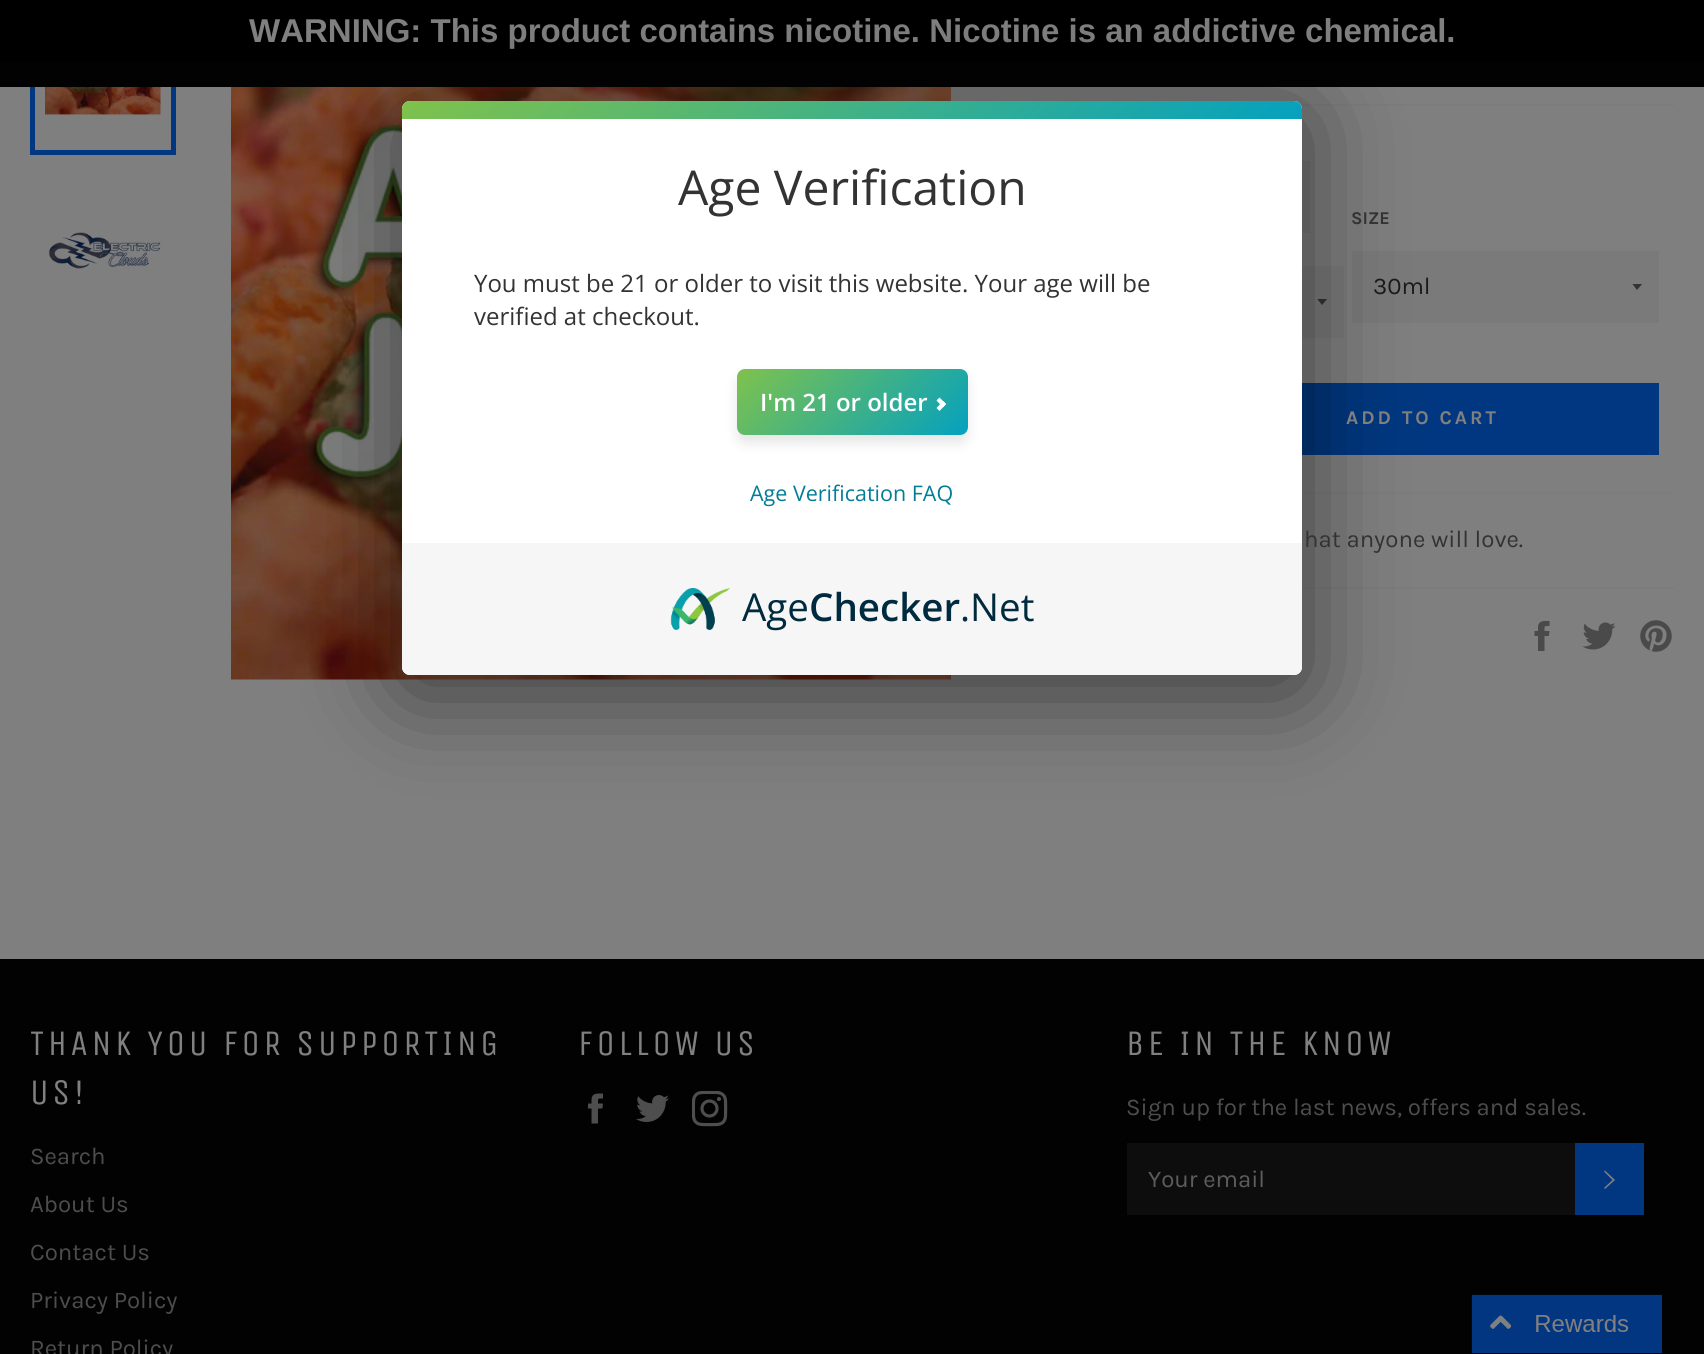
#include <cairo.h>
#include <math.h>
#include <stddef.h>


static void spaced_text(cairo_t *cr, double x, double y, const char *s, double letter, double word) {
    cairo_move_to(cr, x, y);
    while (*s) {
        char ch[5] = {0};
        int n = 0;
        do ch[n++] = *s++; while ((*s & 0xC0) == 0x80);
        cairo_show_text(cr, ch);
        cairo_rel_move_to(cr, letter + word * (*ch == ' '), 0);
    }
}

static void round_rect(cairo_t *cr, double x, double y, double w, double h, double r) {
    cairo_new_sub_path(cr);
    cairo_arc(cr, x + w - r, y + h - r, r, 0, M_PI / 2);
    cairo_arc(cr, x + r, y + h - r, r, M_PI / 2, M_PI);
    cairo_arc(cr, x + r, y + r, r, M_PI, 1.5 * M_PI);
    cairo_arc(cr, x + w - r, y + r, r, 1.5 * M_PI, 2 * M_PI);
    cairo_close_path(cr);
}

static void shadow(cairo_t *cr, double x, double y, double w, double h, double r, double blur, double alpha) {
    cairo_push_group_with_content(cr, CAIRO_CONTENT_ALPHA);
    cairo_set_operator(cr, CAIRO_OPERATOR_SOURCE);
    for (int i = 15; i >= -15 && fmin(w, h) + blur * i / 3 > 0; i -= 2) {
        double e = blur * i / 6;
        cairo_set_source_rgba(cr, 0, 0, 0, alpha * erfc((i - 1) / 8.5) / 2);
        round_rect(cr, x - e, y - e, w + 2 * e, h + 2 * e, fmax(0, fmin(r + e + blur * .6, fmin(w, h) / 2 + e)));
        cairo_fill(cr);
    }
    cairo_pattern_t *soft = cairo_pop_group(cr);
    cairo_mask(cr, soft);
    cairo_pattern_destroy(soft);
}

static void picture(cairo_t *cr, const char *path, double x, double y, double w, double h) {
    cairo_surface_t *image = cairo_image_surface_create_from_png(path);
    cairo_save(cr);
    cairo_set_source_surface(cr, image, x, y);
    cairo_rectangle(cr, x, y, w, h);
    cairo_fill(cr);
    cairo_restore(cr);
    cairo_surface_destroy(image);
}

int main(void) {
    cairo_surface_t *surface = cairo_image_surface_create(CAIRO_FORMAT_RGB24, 1704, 1354);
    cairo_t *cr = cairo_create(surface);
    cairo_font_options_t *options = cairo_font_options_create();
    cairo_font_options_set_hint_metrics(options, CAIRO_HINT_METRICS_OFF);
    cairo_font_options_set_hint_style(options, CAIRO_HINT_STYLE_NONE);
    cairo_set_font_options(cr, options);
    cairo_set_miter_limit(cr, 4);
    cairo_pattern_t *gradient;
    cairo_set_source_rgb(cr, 0.498, 0.498, 0.498);
    cairo_paint(cr);
    picture(cr, "img2.png", 45, 87, 116, 28);
    cairo_rectangle(cr, 32.5, -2.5, 141, 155);
    cairo_set_source_rgb(cr, 0, 0.216, 0.502);
    cairo_set_line_width(cr, 5);
    cairo_stroke(cr);
    cairo_set_source_rgb(cr, 0, 0, 0);
    cairo_rectangle(cr, 0, 0, 1704, 63);
    cairo_fill(cr);
    cairo_select_font_face(cr, "Liberation Sans", CAIRO_FONT_SLANT_NORMAL, CAIRO_FONT_WEIGHT_BOLD);
    cairo_set_font_size(cr, 33);
    cairo_set_source_rgb(cr, 0.502, 0.502, 0.502);
    cairo_move_to(cr, 249, 42);
    cairo_show_text(cr, "WARNING: This product contains nicotine. Nicotine is an addictive chemical.");
    cairo_set_source_rgb(cr, 0.008, 0.008, 0.008);
    cairo_rectangle(cr, 0, 63, 1704, 24);
    cairo_fill(cr);
    picture(cr, "img4.png", 231, 87, 720, 593);
    cairo_set_source_rgb(cr, 0.486, 0.486, 0.486);
    cairo_rectangle(cr, 1300, 104, 374, 2);
    cairo_fill(cr);
    cairo_set_source_rgb(cr, 0.478, 0.478, 0.478);
    cairo_rectangle(cr, 1302, 161, 8, 72);
    cairo_fill(cr);
    cairo_rectangle(cr, 1302, 266, 42, 72);
    cairo_fill(cr);
    cairo_save(cr);
    cairo_rectangle(cr, 1317, 299, 12, 7);
    cairo_clip(cr);
    cairo_set_source_rgb(cr, 0.2, 0.2, 0.2);
    cairo_new_path(cr);
    cairo_move_to(cr, 1317, 298.5);
    cairo_line_to(cr, 1322, 305);
    cairo_line_to(cr, 1327.5, 298.5);
    cairo_close_path(cr);
    cairo_fill(cr);
    cairo_restore(cr);
    cairo_rectangle(cr, 1352, 251, 307, 72);
    cairo_fill(cr);
    cairo_set_source_rgb(cr, 0, 0.216, 0.502);
    cairo_rectangle(cr, 1302, 383, 357, 72);
    cairo_fill(cr);
    cairo_set_source_rgb(cr, 0.486, 0.486, 0.486);
    cairo_rectangle(cr, 1302, 492, 372, 2);
    cairo_fill(cr);
    cairo_rectangle(cr, 1302, 587, 372, 2);
    cairo_fill(cr);
    cairo_set_source_rgb(cr, 0, 0, 0);
    shadow(cr, 398, 111, 909, 584, 12, 48, 0.5);
    cairo_set_source_rgb(cr, 1, 1, 1);
    round_rect(cr, 402, 101, 900, 574, 8);
    cairo_fill(cr);
    gradient = cairo_pattern_create_linear(623, -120, 1082, 339);
    cairo_pattern_add_color_stop_rgba(gradient, 0, 0.498, 0.761, 0.298, 1);
    cairo_pattern_add_color_stop_rgba(gradient, 1, 0.016, 0.631, 0.749, 1);
    cairo_set_source(cr, gradient);
    cairo_pattern_destroy(gradient);
    cairo_new_path(cr);
    cairo_move_to(cr, 410, 101);
    cairo_line_to(cr, 1294, 101);
    cairo_curve_to(cr, 1298.5, 101, 1302, 104.5, 1302, 109);
    cairo_line_to(cr, 1302, 119);
    cairo_line_to(cr, 402, 119);
    cairo_line_to(cr, 402, 109);
    cairo_curve_to(cr, 402, 104.5, 405.5, 101, 410, 101);
    cairo_close_path(cr);
    cairo_fill(cr);
    cairo_select_font_face(cr, "Open Sans", CAIRO_FONT_SLANT_NORMAL, CAIRO_FONT_WEIGHT_NORMAL);
    cairo_set_font_size(cr, 48);
    cairo_set_source_rgb(cr, 0.2, 0.2, 0.2);
    cairo_move_to(cr, 678, 205);
    cairo_show_text(cr, "Age Verification");
    cairo_set_font_size(cr, 24);
    cairo_move_to(cr, 474, 292);
    cairo_show_text(cr, "You must be 21 or older to visit this website. Your age will be");
    cairo_move_to(cr, 474, 325);
    cairo_show_text(cr, "verified at checkout.");
    cairo_set_source_rgb(cr, 0, 0, 0);
    shadow(cr, 737, 377, 231, 66, 8, 6, 0.1);
    gradient = cairo_pattern_create_linear(778, 328, 926, 476);
    cairo_pattern_add_color_stop_rgba(gradient, 0, 0.498, 0.761, 0.298, 1);
    cairo_pattern_add_color_stop_rgba(gradient, 1, 0.016, 0.631, 0.749, 1);
    cairo_set_source(cr, gradient);
    cairo_pattern_destroy(gradient);
    round_rect(cr, 737, 369, 231, 66, 8);
    cairo_fill(cr);
    cairo_select_font_face(cr, "Open Sans SemiBold", CAIRO_FONT_SLANT_NORMAL, CAIRO_FONT_WEIGHT_NORMAL);
    cairo_set_source_rgb(cr, 1, 1, 1);
    cairo_move_to(cr, 760, 411);
    cairo_show_text(cr, "I'm 21 or older");
    cairo_new_path(cr);
    cairo_move_to(cr, 936.5, 400.5);
    cairo_line_to(cr, 939.5, 397.5);
    cairo_line_to(cr, 946, 404);
    cairo_line_to(cr, 943, 407.5);
    cairo_close_path(cr);
    cairo_fill(cr);
    cairo_new_path(cr);
    cairo_move_to(cr, 936.5, 408);
    cairo_line_to(cr, 943, 401);
    cairo_line_to(cr, 946, 404);
    cairo_line_to(cr, 939.5, 411);
    cairo_close_path(cr);
    cairo_fill(cr);
    cairo_select_font_face(cr, "Open Sans", CAIRO_FONT_SLANT_NORMAL, CAIRO_FONT_WEIGHT_NORMAL);
    cairo_set_font_size(cr, 21.5);
    cairo_set_source_rgb(cr, 0.012, 0.49, 0.588);
    cairo_move_to(cr, 750, 501);
    cairo_show_text(cr, "Age Verification FAQ");
    cairo_set_source_rgb(cr, 0.961, 0.961, 0.961);
    cairo_new_path(cr);
    cairo_move_to(cr, 402, 543);
    cairo_line_to(cr, 1302, 543);
    cairo_line_to(cr, 1302, 667);
    cairo_curve_to(cr, 1302, 671.5, 1298.5, 675, 1294, 675);
    cairo_line_to(cr, 410, 675);
    cairo_curve_to(cr, 405.5, 675, 402, 671.5, 402, 667);
    cairo_close_path(cr);
    cairo_fill(cr);
    picture(cr, "img1.png", 670, 588, 60, 42);
    cairo_set_font_size(cr, 38.5);
    cairo_set_source_rgb(cr, 0, 0.169, 0.243);
    cairo_move_to(cr, 742, 621);
    cairo_show_text(cr, "Age");
    cairo_select_font_face(cr, "Open Sans SemiBold", CAIRO_FONT_SLANT_NORMAL, CAIRO_FONT_WEIGHT_NORMAL);
    cairo_move_to(cr, 809, 621);
    cairo_show_text(cr, "Checker");
    cairo_select_font_face(cr, "Open Sans", CAIRO_FONT_SLANT_NORMAL, CAIRO_FONT_WEIGHT_NORMAL);
    cairo_move_to(cr, 960, 621);
    cairo_show_text(cr, ".Net");
    picture(cr, "img3.png", 48, 232, 113, 37);
    cairo_select_font_face(cr, "Karla", CAIRO_FONT_SLANT_NORMAL, CAIRO_FONT_WEIGHT_BOLD);
    cairo_set_font_size(cr, 18);
    cairo_set_source_rgb(cr, 0.2, 0.2, 0.2);
    cairo_move_to(cr, 1351, 224);
    cairo_show_text(cr, "SIZE");
    cairo_save(cr);
    cairo_rectangle(cr, 1632, 284, 12, 7);
    cairo_clip(cr);
    cairo_new_path(cr);
    cairo_move_to(cr, 1632, 283.5);
    cairo_line_to(cr, 1637, 290);
    cairo_line_to(cr, 1642.5, 283.5);
    cairo_close_path(cr);
    cairo_fill(cr);
    cairo_restore(cr);
    cairo_select_font_face(cr, "Karla", CAIRO_FONT_SLANT_NORMAL, CAIRO_FONT_WEIGHT_NORMAL);
    cairo_set_font_size(cr, 24);
    cairo_set_source_rgb(cr, 0.102, 0.102, 0.102);
    cairo_move_to(cr, 1373, 294);
    cairo_show_text(cr, "30ml");
    cairo_select_font_face(cr, "Karla", CAIRO_FONT_SLANT_NORMAL, CAIRO_FONT_WEIGHT_BOLD);
    cairo_set_font_size(cr, 19.5);
    cairo_set_source_rgb(cr, 0.502, 0.502, 0.502);
    spaced_text(cr, 1346, 424, "ADD TO CART", 3, 0);
    cairo_select_font_face(cr, "Karla", CAIRO_FONT_SLANT_NORMAL, CAIRO_FONT_WEIGHT_NORMAL);
    cairo_set_font_size(cr, 24);
    cairo_set_source_rgb(cr, 0.2, 0.2, 0.2);
    cairo_move_to(cr, 1304, 547);
    cairo_show_text(cr, "hat anyone will love.");
    picture(cr, "img5.png", 1534, 621, 16, 30);
    picture(cr, "img6.png", 1582, 622, 34, 28);
    picture(cr, "img7.png", 1640, 620, 32, 32);
    cairo_set_source_rgb(cr, 0.008, 0.008, 0.008);
    cairo_rectangle(cr, 0, 959, 1704, 395);
    cairo_fill(cr);
    cairo_select_font_face(cr, "Unica One", CAIRO_FONT_SLANT_NORMAL, CAIRO_FONT_WEIGHT_NORMAL);
    cairo_set_font_size(cr, 36);
    cairo_set_source_rgb(cr, 0.502, 0.502, 0.502);
    spaced_text(cr, 30, 1055, "THANK YOU FOR SUPPORTING", 3.6, 0);
    spaced_text(cr, 30, 1104, "US!", 3.6, 0);
    cairo_select_font_face(cr, "Karla", CAIRO_FONT_SLANT_NORMAL, CAIRO_FONT_WEIGHT_NORMAL);
    cairo_set_font_size(cr, 24);
    cairo_set_source_rgb(cr, 0.302, 0.302, 0.302);
    cairo_move_to(cr, 30, 1164);
    cairo_show_text(cr, "Search");
    cairo_move_to(cr, 30, 1212);
    cairo_show_text(cr, "About Us");
    cairo_move_to(cr, 30, 1260);
    cairo_show_text(cr, "Contact Us");
    cairo_move_to(cr, 30, 1308);
    cairo_show_text(cr, "Privacy Policy");
    cairo_move_to(cr, 30, 1356);
    cairo_show_text(cr, "Return Policy");
    cairo_select_font_face(cr, "Unica One", CAIRO_FONT_SLANT_NORMAL, CAIRO_FONT_WEIGHT_NORMAL);
    cairo_set_font_size(cr, 36);
    cairo_set_source_rgb(cr, 0.502, 0.502, 0.502);
    spaced_text(cr, 578, 1055, "FOLLOW US", 3.6, 0);
    picture(cr, "img8.png", 588, 1093, 15, 31);
    picture(cr, "img9.png", 636, 1095, 33, 27);
    picture(cr, "img10.png", 692, 1091, 36, 36);
    spaced_text(cr, 1126, 1055, "BE IN THE KNOW", 3.6, 0);
    cairo_select_font_face(cr, "Karla", CAIRO_FONT_SLANT_NORMAL, CAIRO_FONT_WEIGHT_NORMAL);
    cairo_set_font_size(cr, 24);
    cairo_set_source_rgb(cr, 0.302, 0.302, 0.302);
    cairo_move_to(cr, 1126, 1115);
    cairo_show_text(cr, "Sign up for the last news, offers and sales.");
    cairo_set_source_rgb(cr, 0.051, 0.051, 0.051);
    cairo_rectangle(cr, 1127, 1143, 448, 72);
    cairo_fill(cr);
    cairo_set_source_rgb(cr, 0.365, 0.365, 0.365);
    cairo_move_to(cr, 1148, 1187);
    cairo_show_text(cr, "Your email");
    cairo_set_source_rgb(cr, 0, 0.216, 0.502);
    cairo_rectangle(cr, 1575, 1143, 69, 72);
    cairo_fill(cr);
    cairo_set_source_rgb(cr, 0.502, 0.502, 0.502);
    cairo_new_path(cr);
    cairo_move_to(cr, 1604, 1171.5);
    cairo_line_to(cr, 1605, 1170.5);
    cairo_line_to(cr, 1615, 1180);
    cairo_line_to(cr, 1605, 1189);
    cairo_line_to(cr, 1604, 1188);
    cairo_line_to(cr, 1612.5, 1180);
    cairo_close_path(cr);
    cairo_fill(cr);
    picture(cr, "img11.png", 1471, 1294, 191, 59);
    cairo_surface_write_to_png(surface, "page.png");
    cairo_font_options_destroy(options);
    cairo_destroy(cr);
    cairo_surface_destroy(surface);
    return 0;
}
